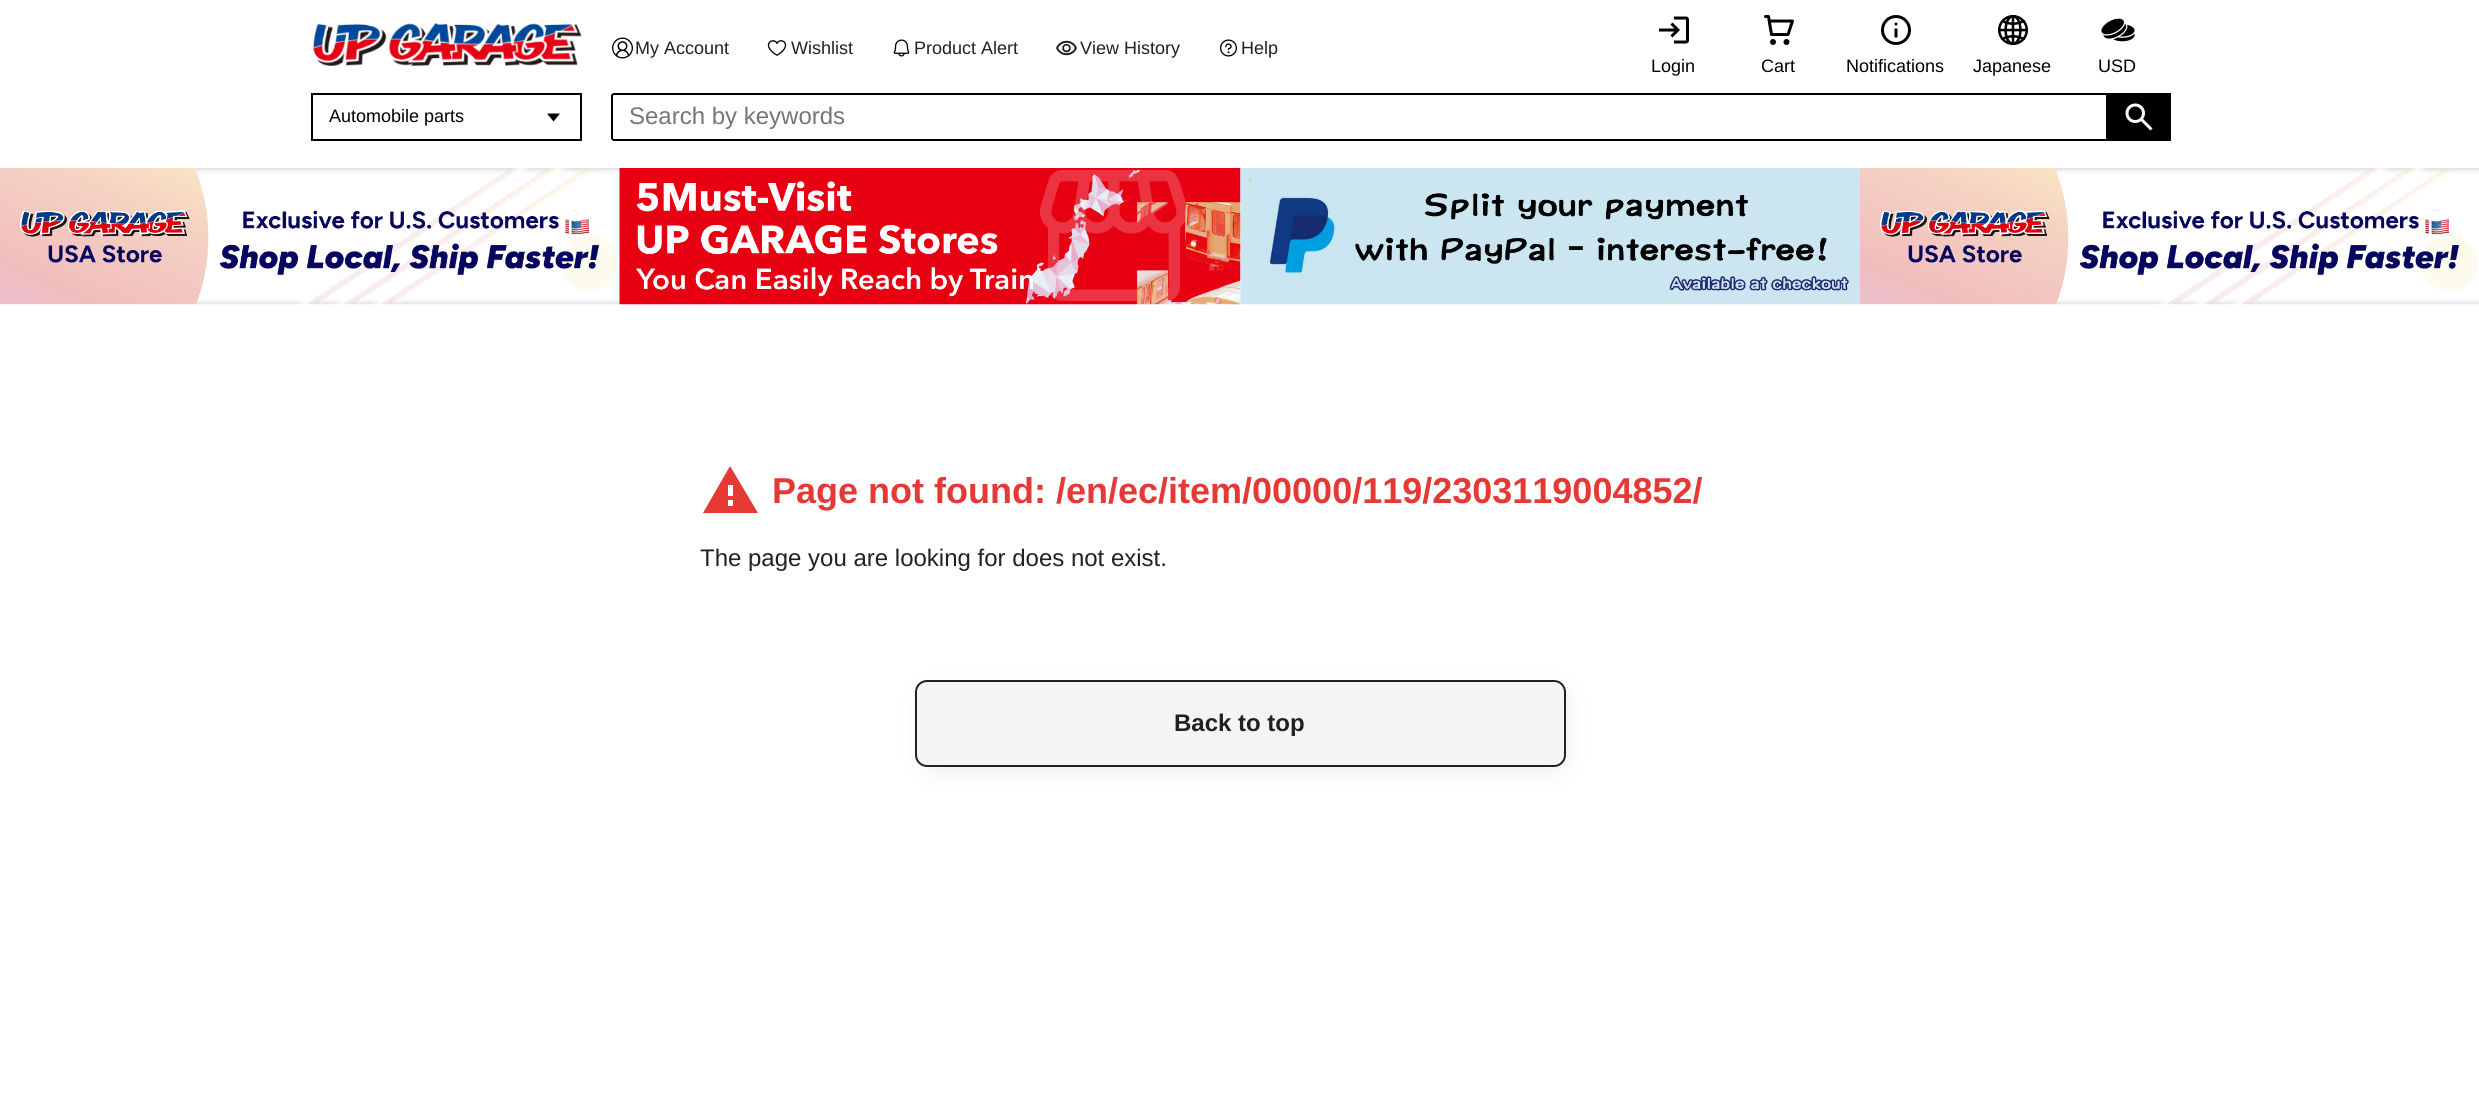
#include <cairo.h>
#include <math.h>
#include <stddef.h>


static void round_rect(cairo_t *cr, double x, double y, double w, double h, double r) {
    cairo_new_sub_path(cr);
    cairo_arc(cr, x + w - r, y + h - r, r, 0, M_PI / 2);
    cairo_arc(cr, x + r, y + h - r, r, M_PI / 2, M_PI);
    cairo_arc(cr, x + r, y + r, r, M_PI, 1.5 * M_PI);
    cairo_arc(cr, x + w - r, y + r, r, 1.5 * M_PI, 2 * M_PI);
    cairo_close_path(cr);
}

static void shadow(cairo_t *cr, double x, double y, double w, double h, double r, double blur, double alpha) {
    cairo_push_group_with_content(cr, CAIRO_CONTENT_ALPHA);
    cairo_set_operator(cr, CAIRO_OPERATOR_SOURCE);
    for (int i = 15; i >= -15 && fmin(w, h) + blur * i / 3 > 0; i -= 2) {
        double e = blur * i / 6;
        cairo_set_source_rgba(cr, 0, 0, 0, alpha * erfc((i - 1) / 8.5) / 2);
        round_rect(cr, x - e, y - e, w + 2 * e, h + 2 * e, fmax(0, fmin(r + e + blur * .6, fmin(w, h) / 2 + e)));
        cairo_fill(cr);
    }
    cairo_pattern_t *soft = cairo_pop_group(cr);
    cairo_mask(cr, soft);
    cairo_pattern_destroy(soft);
}

static void picture(cairo_t *cr, const char *path, double x, double y, double w, double h) {
    cairo_surface_t *image = cairo_image_surface_create_from_png(path);
    cairo_save(cr);
    cairo_set_source_surface(cr, image, x, y);
    cairo_rectangle(cr, x, y, w, h);
    cairo_fill(cr);
    cairo_restore(cr);
    cairo_surface_destroy(image);
}

int main(void) {
    cairo_surface_t *surface = cairo_image_surface_create(CAIRO_FORMAT_RGB24, 2479, 1103);
    cairo_t *cr = cairo_create(surface);
    cairo_font_options_t *options = cairo_font_options_create();
    cairo_font_options_set_hint_metrics(options, CAIRO_HINT_METRICS_OFF);
    cairo_font_options_set_hint_style(options, CAIRO_HINT_STYLE_NONE);
    cairo_set_font_options(cr, options);
    cairo_set_miter_limit(cr, 4);
    cairo_set_source_rgb(cr, 1, 1, 1);
    cairo_paint(cr);
    picture(cr, "img1.png", 312, 23, 270, 43);
    picture(cr, "img2.png", 612, 37, 21, 22);
    cairo_select_font_face(cr, "Liberation Sans", CAIRO_FONT_SLANT_NORMAL, CAIRO_FONT_WEIGHT_NORMAL);
    cairo_set_font_size(cr, 18);
    cairo_set_source_rgb(cr, 0.129, 0.129, 0.129);
    cairo_move_to(cr, 635, 54);
    cairo_show_text(cr, "My Account");
    picture(cr, "img3.png", 767, 40, 20, 16);
    cairo_move_to(cr, 791, 54);
    cairo_show_text(cr, "Wishlist");
    picture(cr, "img4.png", 893, 39, 17, 18);
    cairo_move_to(cr, 914, 54);
    cairo_show_text(cr, "Product Alert");
    picture(cr, "img5.png", 1056, 40, 21, 16);
    cairo_move_to(cr, 1080, 54);
    cairo_show_text(cr, "View History");
    picture(cr, "img6.png", 1220, 39, 17, 18);
    cairo_move_to(cr, 1241, 54);
    cairo_show_text(cr, "Help");
    picture(cr, "img7.png", 1659, 16, 30, 28);
    cairo_set_source_rgb(cr, 0, 0, 0);
    cairo_move_to(cr, 1651, 72);
    cairo_show_text(cr, "Login");
    picture(cr, "img8.png", 1764, 15, 30, 30);
    cairo_move_to(cr, 1761, 72);
    cairo_show_text(cr, "Cart");
    picture(cr, "img9.png", 1881, 15, 30, 30);
    cairo_move_to(cr, 1846, 72);
    cairo_show_text(cr, "Notifications");
    picture(cr, "img10.png", 1998, 15, 30, 30);
    cairo_move_to(cr, 1973, 72);
    cairo_show_text(cr, "Japanese");
    picture(cr, "img11.png", 2101, 18, 34, 24);
    cairo_move_to(cr, 2098, 72);
    cairo_show_text(cr, "USD");
    cairo_new_path(cr);
    cairo_move_to(cr, 553.5, 121.5);
    cairo_line_to(cr, 547, 113.5);
    cairo_line_to(cr, 560, 113.5);
    cairo_close_path(cr);
    cairo_fill(cr);
    cairo_rectangle(cr, 312, 94, 269, 46);
    cairo_stroke(cr);
    cairo_move_to(cr, 329, 122);
    cairo_show_text(cr, "Automobile parts");
    cairo_new_path(cr);
    cairo_move_to(cr, 614, 94);
    cairo_line_to(cr, 2107, 94);
    cairo_line_to(cr, 2107, 140);
    cairo_line_to(cr, 614, 140);
    cairo_curve_to(cr, 613, 140, 612, 139, 612, 138);
    cairo_line_to(cr, 612, 96);
    cairo_curve_to(cr, 612, 95, 613, 94, 614, 94);
    cairo_close_path(cr);
    cairo_stroke(cr);
    cairo_set_font_size(cr, 24);
    cairo_set_source_rgb(cr, 0.459, 0.459, 0.459);
    cairo_move_to(cr, 629, 124);
    cairo_show_text(cr, "Search by keywords");
    cairo_set_source_rgb(cr, 0, 0, 0);
    cairo_rectangle(cr, 2108, 93, 63, 48);
    cairo_fill(cr);
    picture(cr, "img12.png", 2125, 103, 28, 28);
    picture(cr, "img13.png", 0, 168, 620, 137);
    picture(cr, "img14.png", 619, 168, 622, 137);
    picture(cr, "img15.png", 1240, 168, 620, 137);
    picture(cr, "img16.png", 1860, 168, 619, 137);
    cairo_set_source_rgb(cr, 0.898, 0.224, 0.208);
    cairo_new_path(cr);
    cairo_move_to(cr, 733, 496);
    cairo_line_to(cr, 733, 485);
    cairo_line_to(cr, 728, 485);
    cairo_line_to(cr, 728, 496);
    cairo_close_path(cr);
    cairo_move_to(cr, 733, 506);
    cairo_line_to(cr, 733, 500);
    cairo_line_to(cr, 728, 500);
    cairo_line_to(cr, 728, 506);
    cairo_close_path(cr);
    cairo_move_to(cr, 703, 513);
    cairo_line_to(cr, 730, 466);
    cairo_line_to(cr, 758, 513);
    cairo_close_path(cr);
    cairo_fill(cr);
    cairo_select_font_face(cr, "Liberation Sans", CAIRO_FONT_SLANT_NORMAL, CAIRO_FONT_WEIGHT_BOLD);
    cairo_set_font_size(cr, 36);
    cairo_move_to(cr, 772, 503);
    cairo_show_text(cr, "Page not found: /en/ec/item/00000/119/2303119004852/");
    cairo_select_font_face(cr, "Liberation Sans", CAIRO_FONT_SLANT_NORMAL, CAIRO_FONT_WEIGHT_NORMAL);
    cairo_set_font_size(cr, 24);
    cairo_set_source_rgb(cr, 0.129, 0.129, 0.129);
    cairo_move_to(cr, 700, 566);
    cairo_show_text(cr, "The page you are looking for does not exist.");
    cairo_set_source_rgb(cr, 0, 0, 0);
    shadow(cr, 926, 693, 636, 72, 5, 13.5, 0.1);
    cairo_set_source_rgb(cr, 0.957, 0.957, 0.957);
    round_rect(cr, 916, 681, 649, 85, 11);
    cairo_fill_preserve(cr);
    cairo_set_source_rgb(cr, 0.129, 0.129, 0.129);
    cairo_stroke(cr);
    cairo_select_font_face(cr, "Liberation Sans", CAIRO_FONT_SLANT_NORMAL, CAIRO_FONT_WEIGHT_BOLD);
    cairo_move_to(cr, 1174, 731);
    cairo_show_text(cr, "Back to top");
    cairo_surface_write_to_png(surface, "page.png");
    cairo_font_options_destroy(options);
    cairo_destroy(cr);
    cairo_surface_destroy(surface);
    return 0;
}
